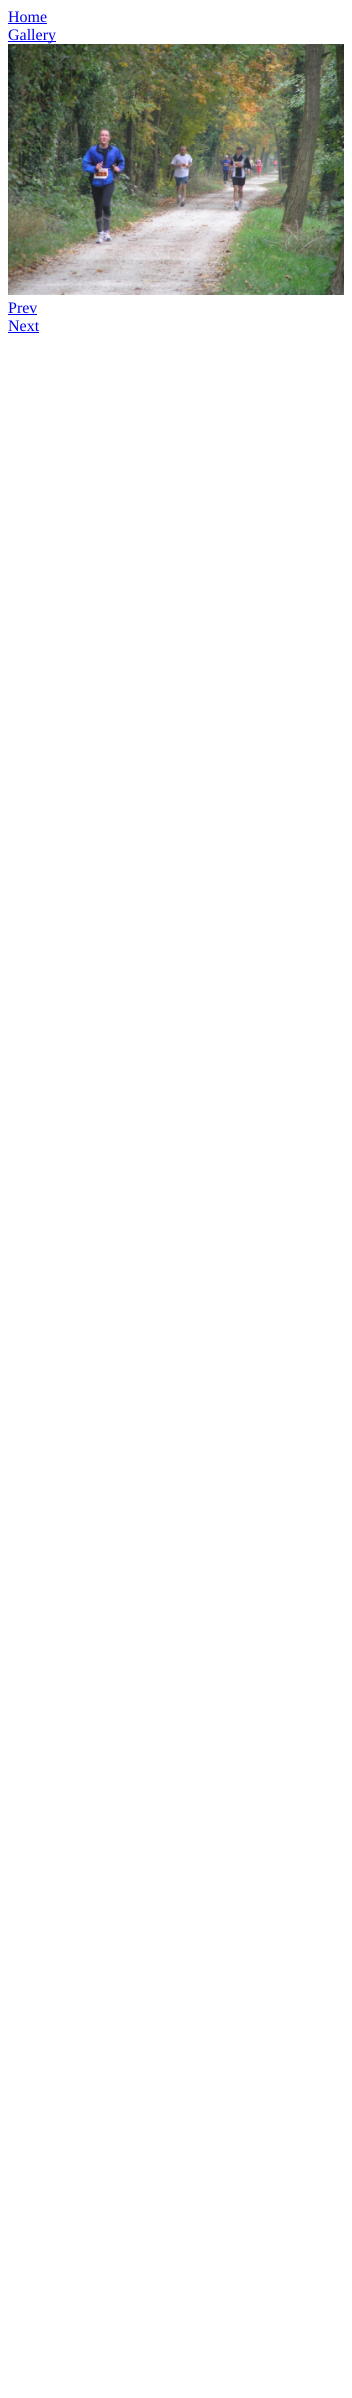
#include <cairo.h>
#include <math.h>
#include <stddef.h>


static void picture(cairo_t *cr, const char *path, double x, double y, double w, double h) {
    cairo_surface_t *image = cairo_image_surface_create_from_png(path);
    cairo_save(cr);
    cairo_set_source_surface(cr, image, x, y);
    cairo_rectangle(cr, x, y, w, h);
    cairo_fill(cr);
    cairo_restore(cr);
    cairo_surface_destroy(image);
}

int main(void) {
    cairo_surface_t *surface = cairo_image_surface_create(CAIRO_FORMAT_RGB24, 352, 2398);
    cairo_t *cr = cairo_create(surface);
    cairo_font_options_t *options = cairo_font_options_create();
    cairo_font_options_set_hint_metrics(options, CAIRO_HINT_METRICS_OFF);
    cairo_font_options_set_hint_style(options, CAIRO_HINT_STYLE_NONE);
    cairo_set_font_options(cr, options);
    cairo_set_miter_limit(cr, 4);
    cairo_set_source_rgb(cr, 1, 1, 1);
    cairo_paint(cr);
    cairo_select_font_face(cr, "Liberation Serif", CAIRO_FONT_SLANT_NORMAL, CAIRO_FONT_WEIGHT_NORMAL);
    cairo_set_font_size(cr, 16);
    cairo_set_source_rgb(cr, 0, 0, 0.933);
    cairo_move_to(cr, 8, 22);
    cairo_show_text(cr, "Home");
    cairo_rectangle(cr, 8, 23, 39, 1);
    cairo_fill(cr);
    cairo_rectangle(cr, 8, 41, 48, 1);
    cairo_fill(cr);
    cairo_move_to(cr, 8, 40);
    cairo_show_text(cr, "Gallery");
    picture(cr, "img1.png", 8, 44, 336, 251);
    cairo_move_to(cr, 8, 313);
    cairo_show_text(cr, "Prev");
    cairo_rectangle(cr, 8, 314, 29, 1);
    cairo_fill(cr);
    cairo_move_to(cr, 8, 331);
    cairo_show_text(cr, "Next");
    cairo_rectangle(cr, 8, 332, 31, 1);
    cairo_fill(cr);
    cairo_surface_write_to_png(surface, "page.png");
    cairo_font_options_destroy(options);
    cairo_destroy(cr);
    cairo_surface_destroy(surface);
    return 0;
}
